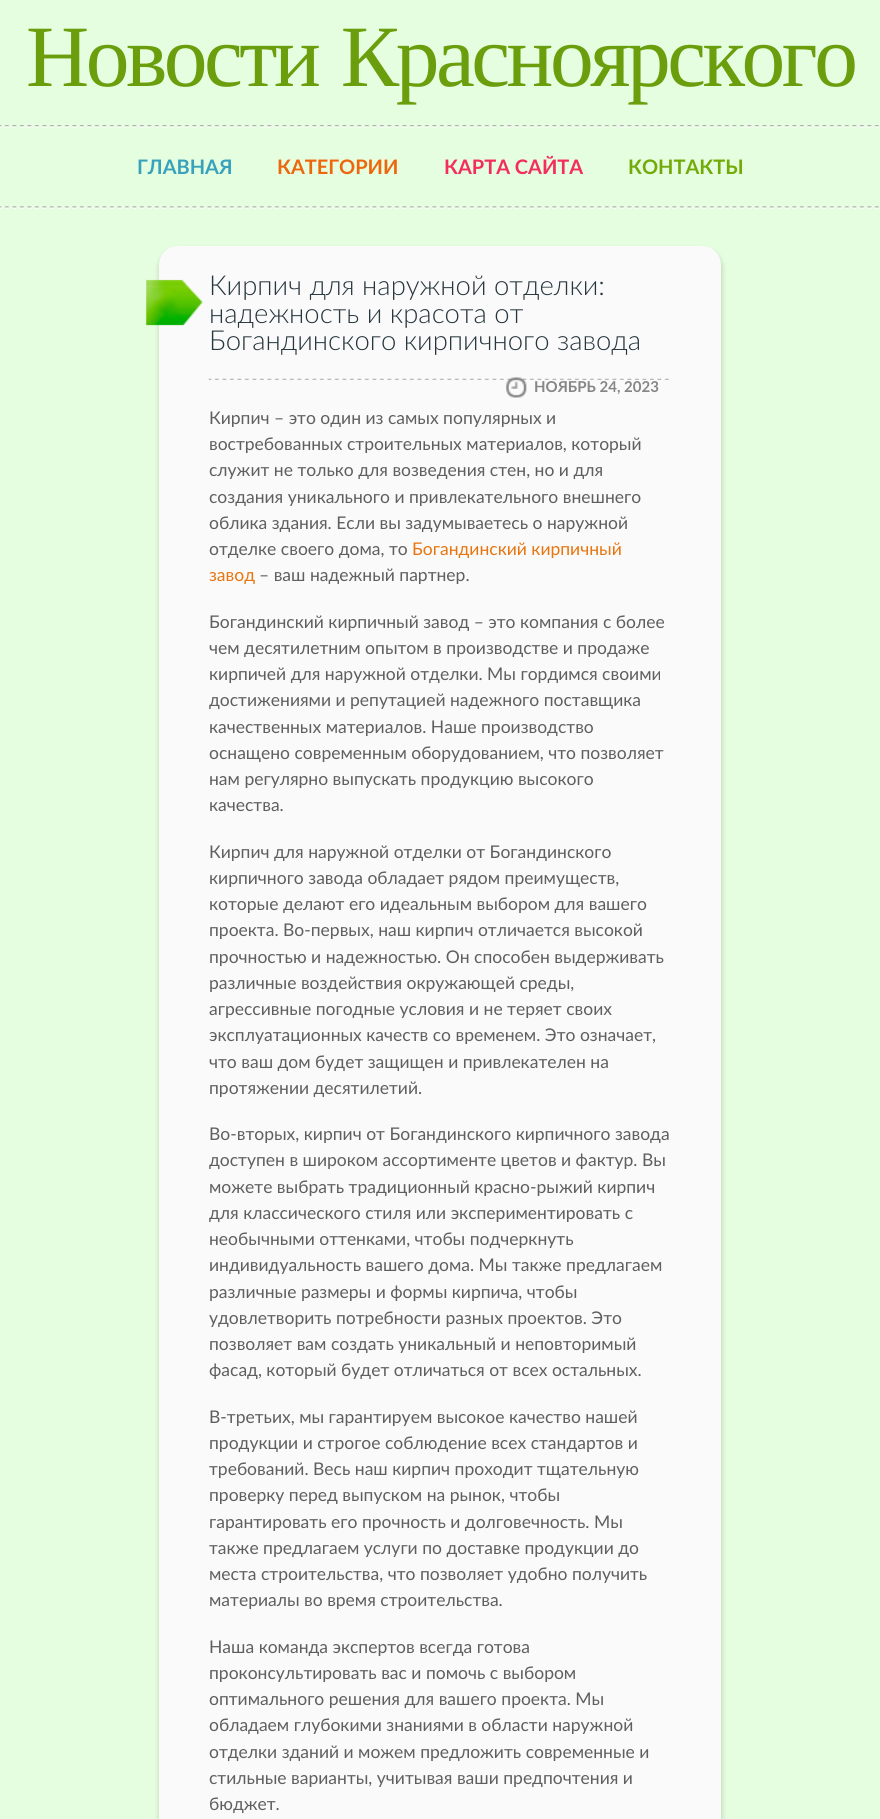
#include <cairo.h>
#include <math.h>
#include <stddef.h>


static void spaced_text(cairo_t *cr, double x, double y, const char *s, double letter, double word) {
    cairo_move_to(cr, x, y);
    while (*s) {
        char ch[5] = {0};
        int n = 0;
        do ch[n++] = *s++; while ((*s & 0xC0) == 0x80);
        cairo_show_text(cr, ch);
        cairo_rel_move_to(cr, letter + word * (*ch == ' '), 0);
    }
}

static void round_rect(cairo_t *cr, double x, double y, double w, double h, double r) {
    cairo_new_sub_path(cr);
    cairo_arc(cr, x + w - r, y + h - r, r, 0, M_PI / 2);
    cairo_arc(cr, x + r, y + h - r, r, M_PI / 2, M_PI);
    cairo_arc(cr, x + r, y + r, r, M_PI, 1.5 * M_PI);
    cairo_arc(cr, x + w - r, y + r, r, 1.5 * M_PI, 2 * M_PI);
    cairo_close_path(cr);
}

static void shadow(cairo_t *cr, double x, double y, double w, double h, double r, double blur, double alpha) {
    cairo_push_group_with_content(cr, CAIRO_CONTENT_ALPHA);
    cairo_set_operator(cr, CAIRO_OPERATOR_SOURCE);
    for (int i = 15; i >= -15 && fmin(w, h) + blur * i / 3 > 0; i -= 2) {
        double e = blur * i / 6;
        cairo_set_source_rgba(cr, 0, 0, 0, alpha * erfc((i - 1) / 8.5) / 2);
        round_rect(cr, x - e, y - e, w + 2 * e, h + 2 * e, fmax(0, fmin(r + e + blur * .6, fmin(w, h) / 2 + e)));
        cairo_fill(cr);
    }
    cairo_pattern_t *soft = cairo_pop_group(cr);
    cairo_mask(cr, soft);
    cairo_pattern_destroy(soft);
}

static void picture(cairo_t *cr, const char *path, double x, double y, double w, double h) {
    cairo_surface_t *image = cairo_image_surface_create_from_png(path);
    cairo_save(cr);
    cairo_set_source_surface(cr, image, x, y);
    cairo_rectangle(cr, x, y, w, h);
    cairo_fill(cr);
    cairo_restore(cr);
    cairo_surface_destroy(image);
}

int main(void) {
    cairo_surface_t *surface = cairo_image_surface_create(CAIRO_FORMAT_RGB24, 880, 1819);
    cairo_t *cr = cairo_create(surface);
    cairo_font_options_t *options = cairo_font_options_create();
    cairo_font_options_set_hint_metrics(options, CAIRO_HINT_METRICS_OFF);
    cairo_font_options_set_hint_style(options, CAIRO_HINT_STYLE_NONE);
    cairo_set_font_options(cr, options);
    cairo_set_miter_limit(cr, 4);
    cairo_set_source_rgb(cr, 0.898, 0.996, 0.875);
    cairo_paint(cr);
    cairo_select_font_face(cr, "Liberation Serif", CAIRO_FONT_SLANT_NORMAL, CAIRO_FONT_WEIGHT_NORMAL);
    cairo_set_font_size(cr, 87.5);
    cairo_set_source_rgb(cr, 0.42, 0.62, 0.047);
    spaced_text(cr, 26, 86, "Новости Красноярского", -3.5, 5);
    picture(cr, "img1.png", 0, 125, 879, 3);
    picture(cr, "img2.png", 0, 206, 879, 3);
    cairo_select_font_face(cr, "Lato", CAIRO_FONT_SLANT_NORMAL, CAIRO_FONT_WEIGHT_BOLD);
    cairo_set_font_size(cr, 20);
    cairo_set_source_rgb(cr, 0.22, 0.635, 0.737);
    cairo_move_to(cr, 137, 174);
    cairo_show_text(cr, "ГЛАВНАЯ");
    cairo_set_source_rgb(cr, 0.929, 0.404, 0.055);
    cairo_move_to(cr, 277, 174);
    cairo_show_text(cr, "КАТЕГОРИИ");
    cairo_set_source_rgb(cr, 0.953, 0.176, 0.365);
    cairo_move_to(cr, 444, 174);
    cairo_show_text(cr, "КАРТА САЙТА");
    cairo_set_source_rgb(cr, 0.447, 0.667, 0.035);
    cairo_move_to(cr, 628, 174);
    cairo_show_text(cr, "КОНТАКТЫ");
    cairo_set_source_rgb(cr, 0, 0, 0);
    shadow(cr, 158, 248, 565, 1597, 20, 2, 0.13);
    cairo_set_source_rgb(cr, 0.98, 0.98, 0.98);
    round_rect(cr, 159, 246, 562, 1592, 19);
    cairo_fill(cr);
    picture(cr, "img3.png", 146, 279, 57, 47);
    cairo_select_font_face(cr, "Lato Light", CAIRO_FONT_SLANT_NORMAL, CAIRO_FONT_WEIGHT_NORMAL);
    cairo_set_font_size(cr, 27.5);
    cairo_set_source_rgb(cr, 0.149, 0.212, 0.239);
    cairo_move_to(cr, 209, 295);
    cairo_show_text(cr, "Кирпич для наружной отделки:");
    cairo_move_to(cr, 209, 323);
    cairo_show_text(cr, "надежность и красота от");
    cairo_move_to(cr, 209, 350);
    cairo_show_text(cr, "Богандинского кирпичного завода");
    picture(cr, "img5.png", 208, 378, 461, 2);
    picture(cr, "img4.png", 506, 377, 21, 21);
    cairo_select_font_face(cr, "Lato", CAIRO_FONT_SLANT_NORMAL, CAIRO_FONT_WEIGHT_BOLD);
    cairo_set_font_size(cr, 15);
    cairo_set_source_rgb(cr, 0.525, 0.525, 0.525);
    cairo_move_to(cr, 534, 392);
    cairo_show_text(cr, "НОЯБРЬ 24, 2023");
    cairo_select_font_face(cr, "Lato", CAIRO_FONT_SLANT_NORMAL, CAIRO_FONT_WEIGHT_NORMAL);
    cairo_set_font_size(cr, 17.5);
    cairo_set_source_rgb(cr, 0.373, 0.373, 0.373);
    cairo_move_to(cr, 209, 424);
    cairo_show_text(cr, "Кирпич – это один из самых популярных и");
    cairo_move_to(cr, 209, 450);
    cairo_show_text(cr, "востребованных строительных материалов, который");
    cairo_move_to(cr, 209, 476);
    cairo_show_text(cr, "служит не только для возведения стен, но и для");
    cairo_move_to(cr, 209, 503);
    cairo_show_text(cr, "создания уникального и привлекательного внешнего");
    cairo_move_to(cr, 209, 529);
    cairo_show_text(cr, "облика здания. Если вы задумываетесь о наружной");
    cairo_move_to(cr, 209, 555);
    cairo_show_text(cr, "отделке своего дома, то");
    cairo_set_source_rgb(cr, 0.91, 0.459, 0.059);
    cairo_move_to(cr, 412, 555);
    cairo_show_text(cr, "Богандинский кирпичный");
    cairo_move_to(cr, 209, 581);
    cairo_show_text(cr, "завод");
    cairo_set_source_rgb(cr, 0.373, 0.373, 0.373);
    cairo_move_to(cr, 259, 581);
    cairo_show_text(cr, "– ваш надежный партнер.");
    cairo_move_to(cr, 209, 628);
    cairo_show_text(cr, "Богандинский кирпичный завод – это компания с более");
    cairo_move_to(cr, 209, 654);
    cairo_show_text(cr, "чем десятилетним опытом в производстве и продаже");
    cairo_move_to(cr, 209, 680);
    cairo_show_text(cr, "кирпичей для наружной отделки. Мы гордимся своими");
    cairo_move_to(cr, 209, 706);
    cairo_show_text(cr, "достижениями и репутацией надежного поставщика");
    cairo_move_to(cr, 209, 733);
    cairo_show_text(cr, "качественных материалов. Наше производство");
    cairo_move_to(cr, 209, 759);
    cairo_show_text(cr, "оснащено современным оборудованием, что позволяет");
    cairo_move_to(cr, 209, 785);
    cairo_show_text(cr, "нам регулярно выпускать продукцию высокого");
    cairo_move_to(cr, 209, 811);
    cairo_show_text(cr, "качества.");
    cairo_move_to(cr, 209, 858);
    cairo_show_text(cr, "Кирпич для наружной отделки от Богандинского");
    cairo_move_to(cr, 209, 884);
    cairo_show_text(cr, "кирпичного завода обладает рядом преимуществ,");
    cairo_move_to(cr, 209, 910);
    cairo_show_text(cr, "которые делают его идеальным выбором для вашего");
    cairo_move_to(cr, 209, 936);
    cairo_show_text(cr, "проекта. Во-первых, наш кирпич отличается высокой");
    cairo_move_to(cr, 209, 963);
    cairo_show_text(cr, "прочностью и надежностью. Он способен выдерживать");
    cairo_move_to(cr, 209, 989);
    cairo_show_text(cr, "различные воздействия окружающей среды,");
    cairo_move_to(cr, 209, 1015);
    cairo_show_text(cr, "агрессивные погодные условия и не теряет своих");
    cairo_move_to(cr, 209, 1041);
    cairo_show_text(cr, "эксплуатационных качеств со временем. Это означает,");
    cairo_move_to(cr, 209, 1068);
    cairo_show_text(cr, "что ваш дом будет защищен и привлекателен на");
    cairo_move_to(cr, 209, 1094);
    cairo_show_text(cr, "протяжении десятилетий.");
    cairo_move_to(cr, 209, 1140);
    cairo_show_text(cr, "Во-вторых, кирпич от Богандинского кирпичного завода");
    cairo_move_to(cr, 209, 1166);
    cairo_show_text(cr, "доступен в широком ассортименте цветов и фактур. Вы");
    cairo_move_to(cr, 209, 1193);
    cairo_show_text(cr, "можете выбрать традиционный красно-рыжий кирпич");
    cairo_move_to(cr, 209, 1219);
    cairo_show_text(cr, "для классического стиля или экспериментировать с");
    cairo_move_to(cr, 209, 1245);
    cairo_show_text(cr, "необычными оттенками, чтобы подчеркнуть");
    cairo_move_to(cr, 209, 1271);
    cairo_show_text(cr, "индивидуальность вашего дома. Мы также предлагаем");
    cairo_move_to(cr, 209, 1298);
    cairo_show_text(cr, "различные размеры и формы кирпича, чтобы");
    cairo_move_to(cr, 209, 1324);
    cairo_show_text(cr, "удовлетворить потребности разных проектов. Это");
    cairo_move_to(cr, 209, 1350);
    cairo_show_text(cr, "позволяет вам создать уникальный и неповторимый");
    cairo_move_to(cr, 209, 1376);
    cairo_show_text(cr, "фасад, который будет отличаться от всех остальных.");
    cairo_move_to(cr, 209, 1423);
    cairo_show_text(cr, "В-третьих, мы гарантируем высокое качество нашей");
    cairo_move_to(cr, 209, 1449);
    cairo_show_text(cr, "продукции и строгое соблюдение всех стандартов и");
    cairo_move_to(cr, 209, 1475);
    cairo_show_text(cr, "требований. Весь наш кирпич проходит тщательную");
    cairo_move_to(cr, 209, 1501);
    cairo_show_text(cr, "проверку перед выпуском на рынок, чтобы");
    cairo_move_to(cr, 209, 1528);
    cairo_show_text(cr, "гарантировать его прочность и долговечность. Мы");
    cairo_move_to(cr, 209, 1554);
    cairo_show_text(cr, "также предлагаем услуги по доставке продукции до");
    cairo_move_to(cr, 209, 1580);
    cairo_show_text(cr, "места строительства, что позволяет удобно получить");
    cairo_move_to(cr, 209, 1606);
    cairo_show_text(cr, "материалы во время строительства.");
    cairo_move_to(cr, 209, 1653);
    cairo_show_text(cr, "Наша команда экспертов всегда готова");
    cairo_move_to(cr, 209, 1679);
    cairo_show_text(cr, "проконсультировать вас и помочь с выбором");
    cairo_move_to(cr, 209, 1705);
    cairo_show_text(cr, "оптимального решения для вашего проекта. Мы");
    cairo_move_to(cr, 209, 1731);
    cairo_show_text(cr, "обладаем глубокими знаниями в области наружной");
    cairo_move_to(cr, 209, 1758);
    cairo_show_text(cr, "отделки зданий и можем предложить современные и");
    cairo_move_to(cr, 209, 1784);
    cairo_show_text(cr, "стильные варианты, учитывая ваши предпочтения и");
    cairo_move_to(cr, 209, 1810);
    cairo_show_text(cr, "бюджет.");
    cairo_surface_write_to_png(surface, "page.png");
    cairo_font_options_destroy(options);
    cairo_destroy(cr);
    cairo_surface_destroy(surface);
    return 0;
}
